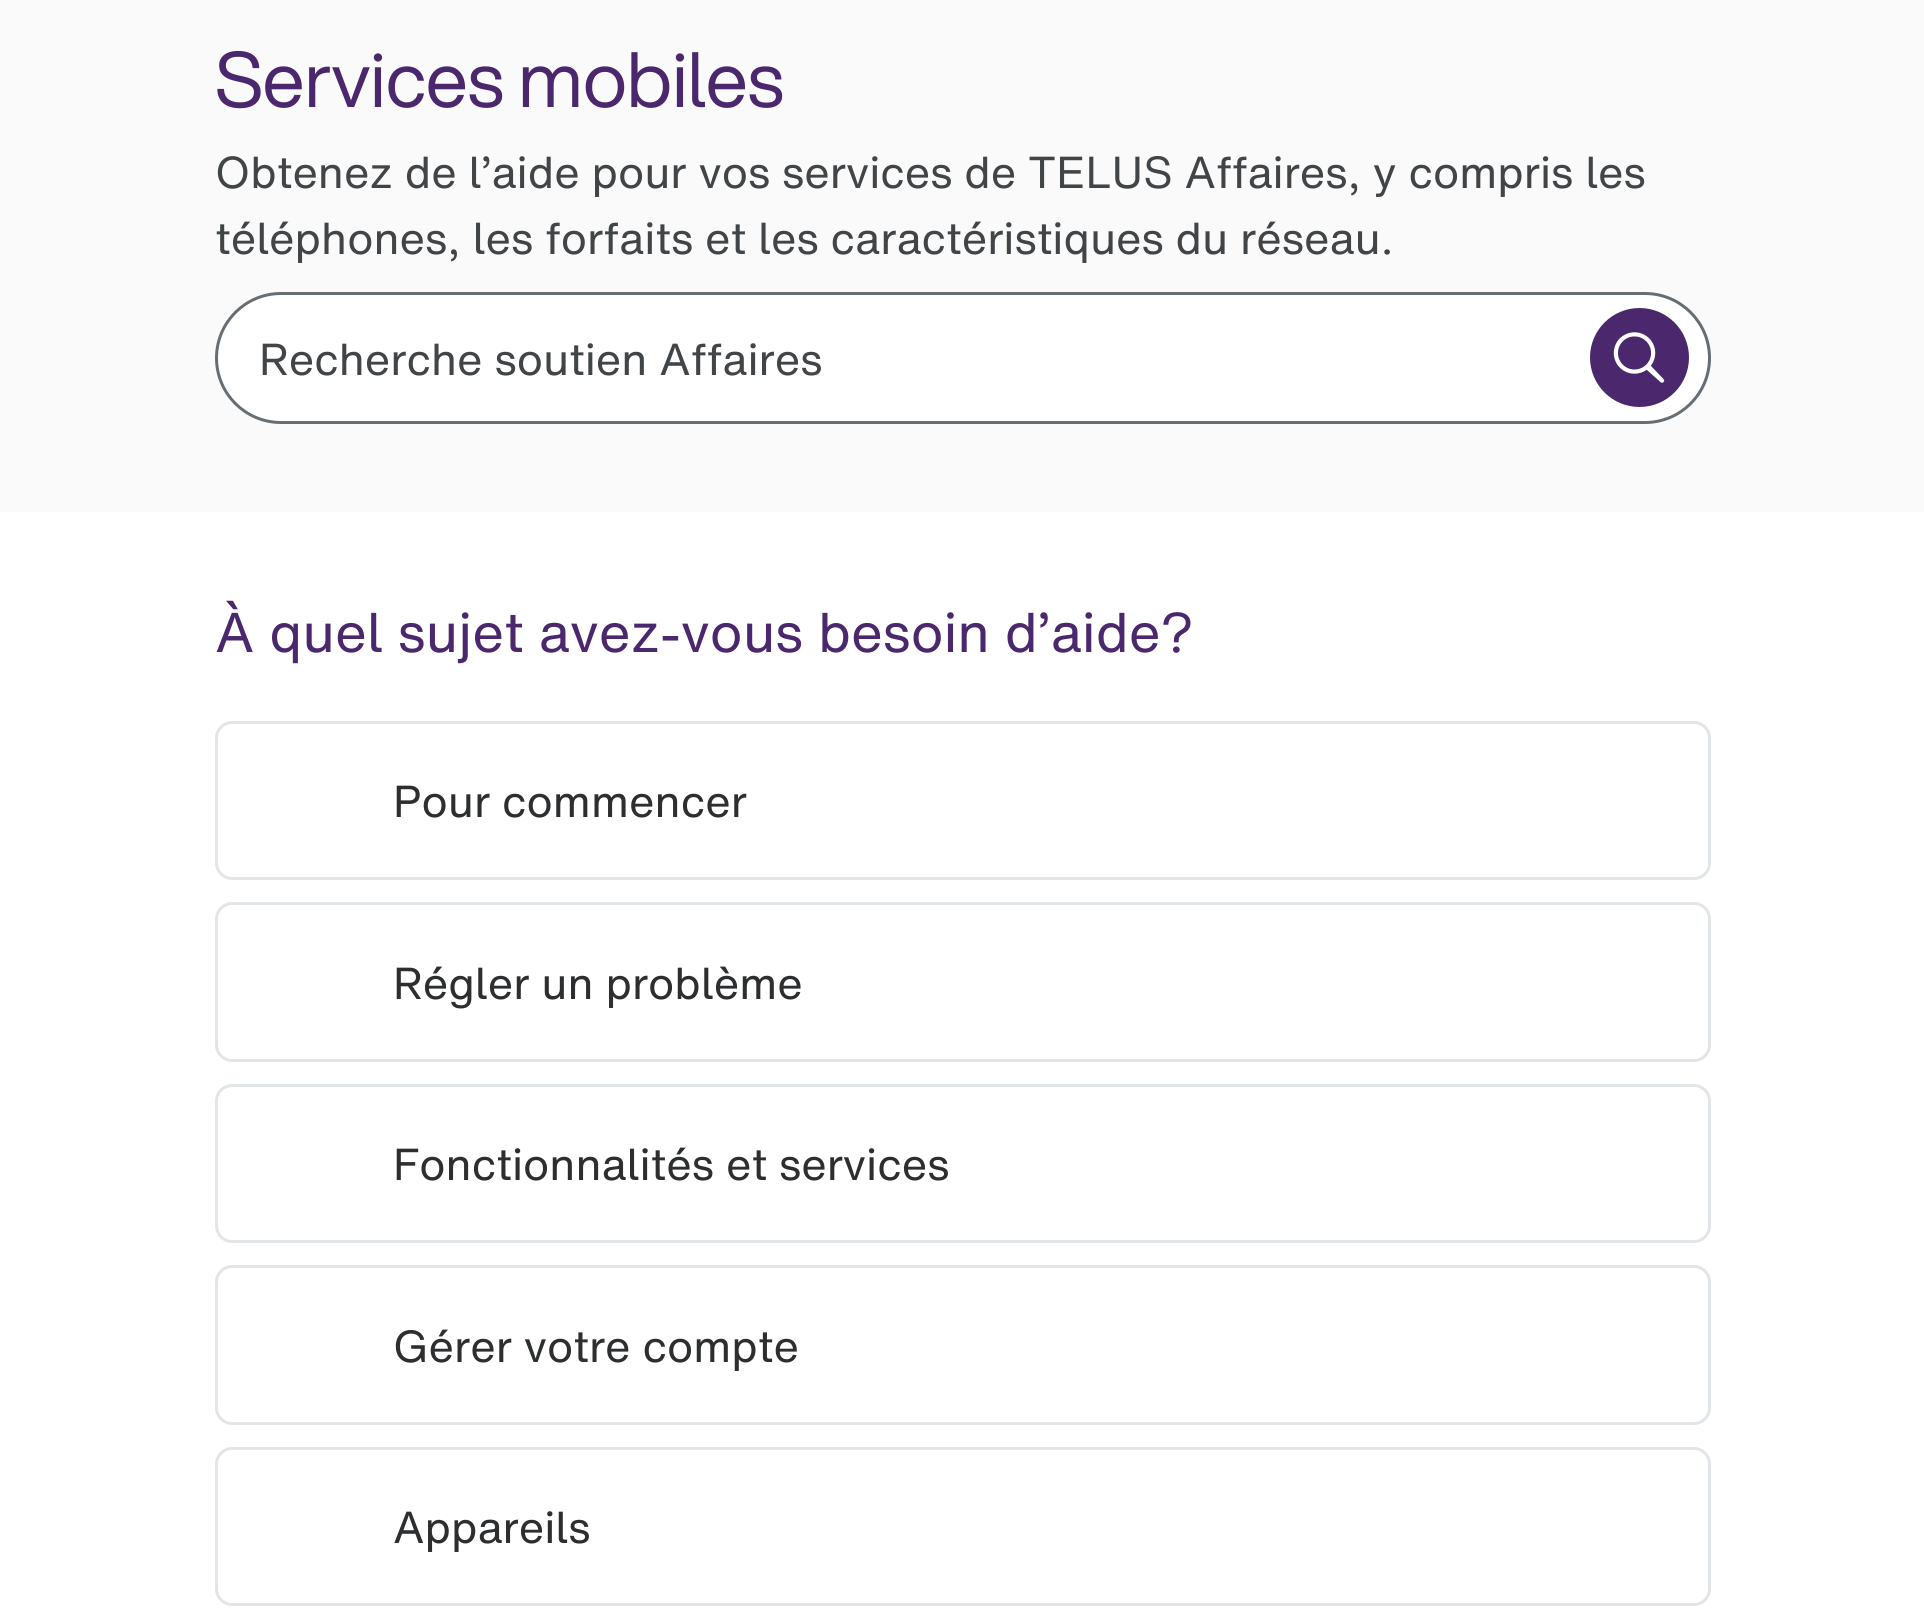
#include <cairo.h>
#include <math.h>
#include <stddef.h>


static void round_rect(cairo_t *cr, double x, double y, double w, double h, double r) {
    cairo_new_sub_path(cr);
    cairo_arc(cr, x + w - r, y + h - r, r, 0, M_PI / 2);
    cairo_arc(cr, x + r, y + h - r, r, M_PI / 2, M_PI);
    cairo_arc(cr, x + r, y + r, r, M_PI, 1.5 * M_PI);
    cairo_arc(cr, x + w - r, y + r, r, 1.5 * M_PI, 2 * M_PI);
    cairo_close_path(cr);
}

static void picture(cairo_t *cr, const char *path, double x, double y, double w, double h) {
    cairo_surface_t *image = cairo_image_surface_create_from_png(path);
    cairo_save(cr);
    cairo_set_source_surface(cr, image, x, y);
    cairo_rectangle(cr, x, y, w, h);
    cairo_fill(cr);
    cairo_restore(cr);
    cairo_surface_destroy(image);
}

int main(void) {
    cairo_surface_t *surface = cairo_image_surface_create(CAIRO_FORMAT_RGB24, 1924, 1612);
    cairo_t *cr = cairo_create(surface);
    cairo_font_options_t *options = cairo_font_options_create();
    cairo_font_options_set_hint_metrics(options, CAIRO_HINT_METRICS_OFF);
    cairo_font_options_set_hint_style(options, CAIRO_HINT_STYLE_NONE);
    cairo_set_font_options(cr, options);
    cairo_set_miter_limit(cr, 4);
    cairo_set_source_rgb(cr, 1, 1, 1);
    cairo_paint(cr);
    cairo_set_source_rgb(cr, 0.98, 0.98, 0.98);
    cairo_rectangle(cr, 0, 0, 1924, 512);
    cairo_fill(cr);
    cairo_select_font_face(cr, "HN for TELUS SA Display", CAIRO_FONT_SLANT_NORMAL, CAIRO_FONT_WEIGHT_NORMAL);
    cairo_set_font_size(cr, 77);
    cairo_set_source_rgb(cr, 0.294, 0.157, 0.427);
    cairo_move_to(cr, 215, 107);
    cairo_show_text(cr, "Services mobiles");
    cairo_select_font_face(cr, "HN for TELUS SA", CAIRO_FONT_SLANT_NORMAL, CAIRO_FONT_WEIGHT_NORMAL);
    cairo_set_font_size(cr, 44);
    cairo_set_source_rgb(cr, 0.255, 0.271, 0.278);
    cairo_move_to(cr, 215, 188);
    cairo_show_text(cr, "Obtenez de l’aide pour vos services de TELUS Affaires, y compris les");
    cairo_move_to(cr, 215, 254);
    cairo_show_text(cr, "téléphones, les forfaits et les caractéristiques du réseau.");
    cairo_set_source_rgb(cr, 1, 1, 1);
    round_rect(cr, 216.5, 293.5, 1493, 129, 64.5);
    cairo_fill_preserve(cr);
    cairo_set_source_rgb(cr, 0.404, 0.431, 0.451);
    cairo_set_line_width(cr, 3);
    cairo_stroke(cr);
    cairo_set_source_rgb(cr, 0.255, 0.271, 0.278);
    cairo_move_to(cr, 259, 375);
    cairo_show_text(cr, "Recherche soutien Affaires");
    cairo_set_source_rgb(cr, 0.294, 0.157, 0.427);
    cairo_new_path(cr);
    cairo_arc(cr, 1639.5, 357.5, 49.5, 0, 2 * M_PI);
    cairo_fill(cr);
    picture(cr, "img1.png", 1613, 332, 52, 51);
    cairo_set_font_size(cr, 55);
    cairo_move_to(cr, 215, 652);
    cairo_show_text(cr, "À quel sujet avez-vous besoin d’aide?");
    round_rect(cr, 216.5, 722.5, 1493, 156, 15.5);
    cairo_set_source_rgb(cr, 0.89, 0.902, 0.91);
    cairo_stroke(cr);
    cairo_set_font_size(cr, 44);
    cairo_set_source_rgb(cr, 0.173, 0.18, 0.188);
    cairo_move_to(cr, 393, 817);
    cairo_show_text(cr, "Pour commencer");
    round_rect(cr, 216.5, 903.5, 1493, 157, 15.5);
    cairo_set_source_rgb(cr, 0.89, 0.902, 0.91);
    cairo_stroke(cr);
    cairo_set_source_rgb(cr, 0.173, 0.18, 0.188);
    cairo_move_to(cr, 393, 999);
    cairo_show_text(cr, "Régler un problème");
    round_rect(cr, 216.5, 1085.5, 1493, 156, 15.5);
    cairo_set_source_rgb(cr, 0.89, 0.902, 0.91);
    cairo_stroke(cr);
    cairo_set_source_rgb(cr, 0.173, 0.18, 0.188);
    cairo_move_to(cr, 393, 1180);
    cairo_show_text(cr, "Fonctionnalités et services");
    round_rect(cr, 216.5, 1266.5, 1493, 157, 15.5);
    cairo_set_source_rgb(cr, 0.89, 0.902, 0.91);
    cairo_stroke(cr);
    cairo_set_source_rgb(cr, 0.173, 0.18, 0.188);
    cairo_move_to(cr, 393, 1362);
    cairo_show_text(cr, "Gérer votre compte");
    round_rect(cr, 216.5, 1448.5, 1493, 156, 15.5);
    cairo_set_source_rgb(cr, 0.89, 0.902, 0.91);
    cairo_stroke(cr);
    cairo_set_source_rgb(cr, 0.173, 0.18, 0.188);
    cairo_move_to(cr, 393, 1543);
    cairo_show_text(cr, "Appareils");
    cairo_surface_write_to_png(surface, "page.png");
    cairo_font_options_destroy(options);
    cairo_destroy(cr);
    cairo_surface_destroy(surface);
    return 0;
}
